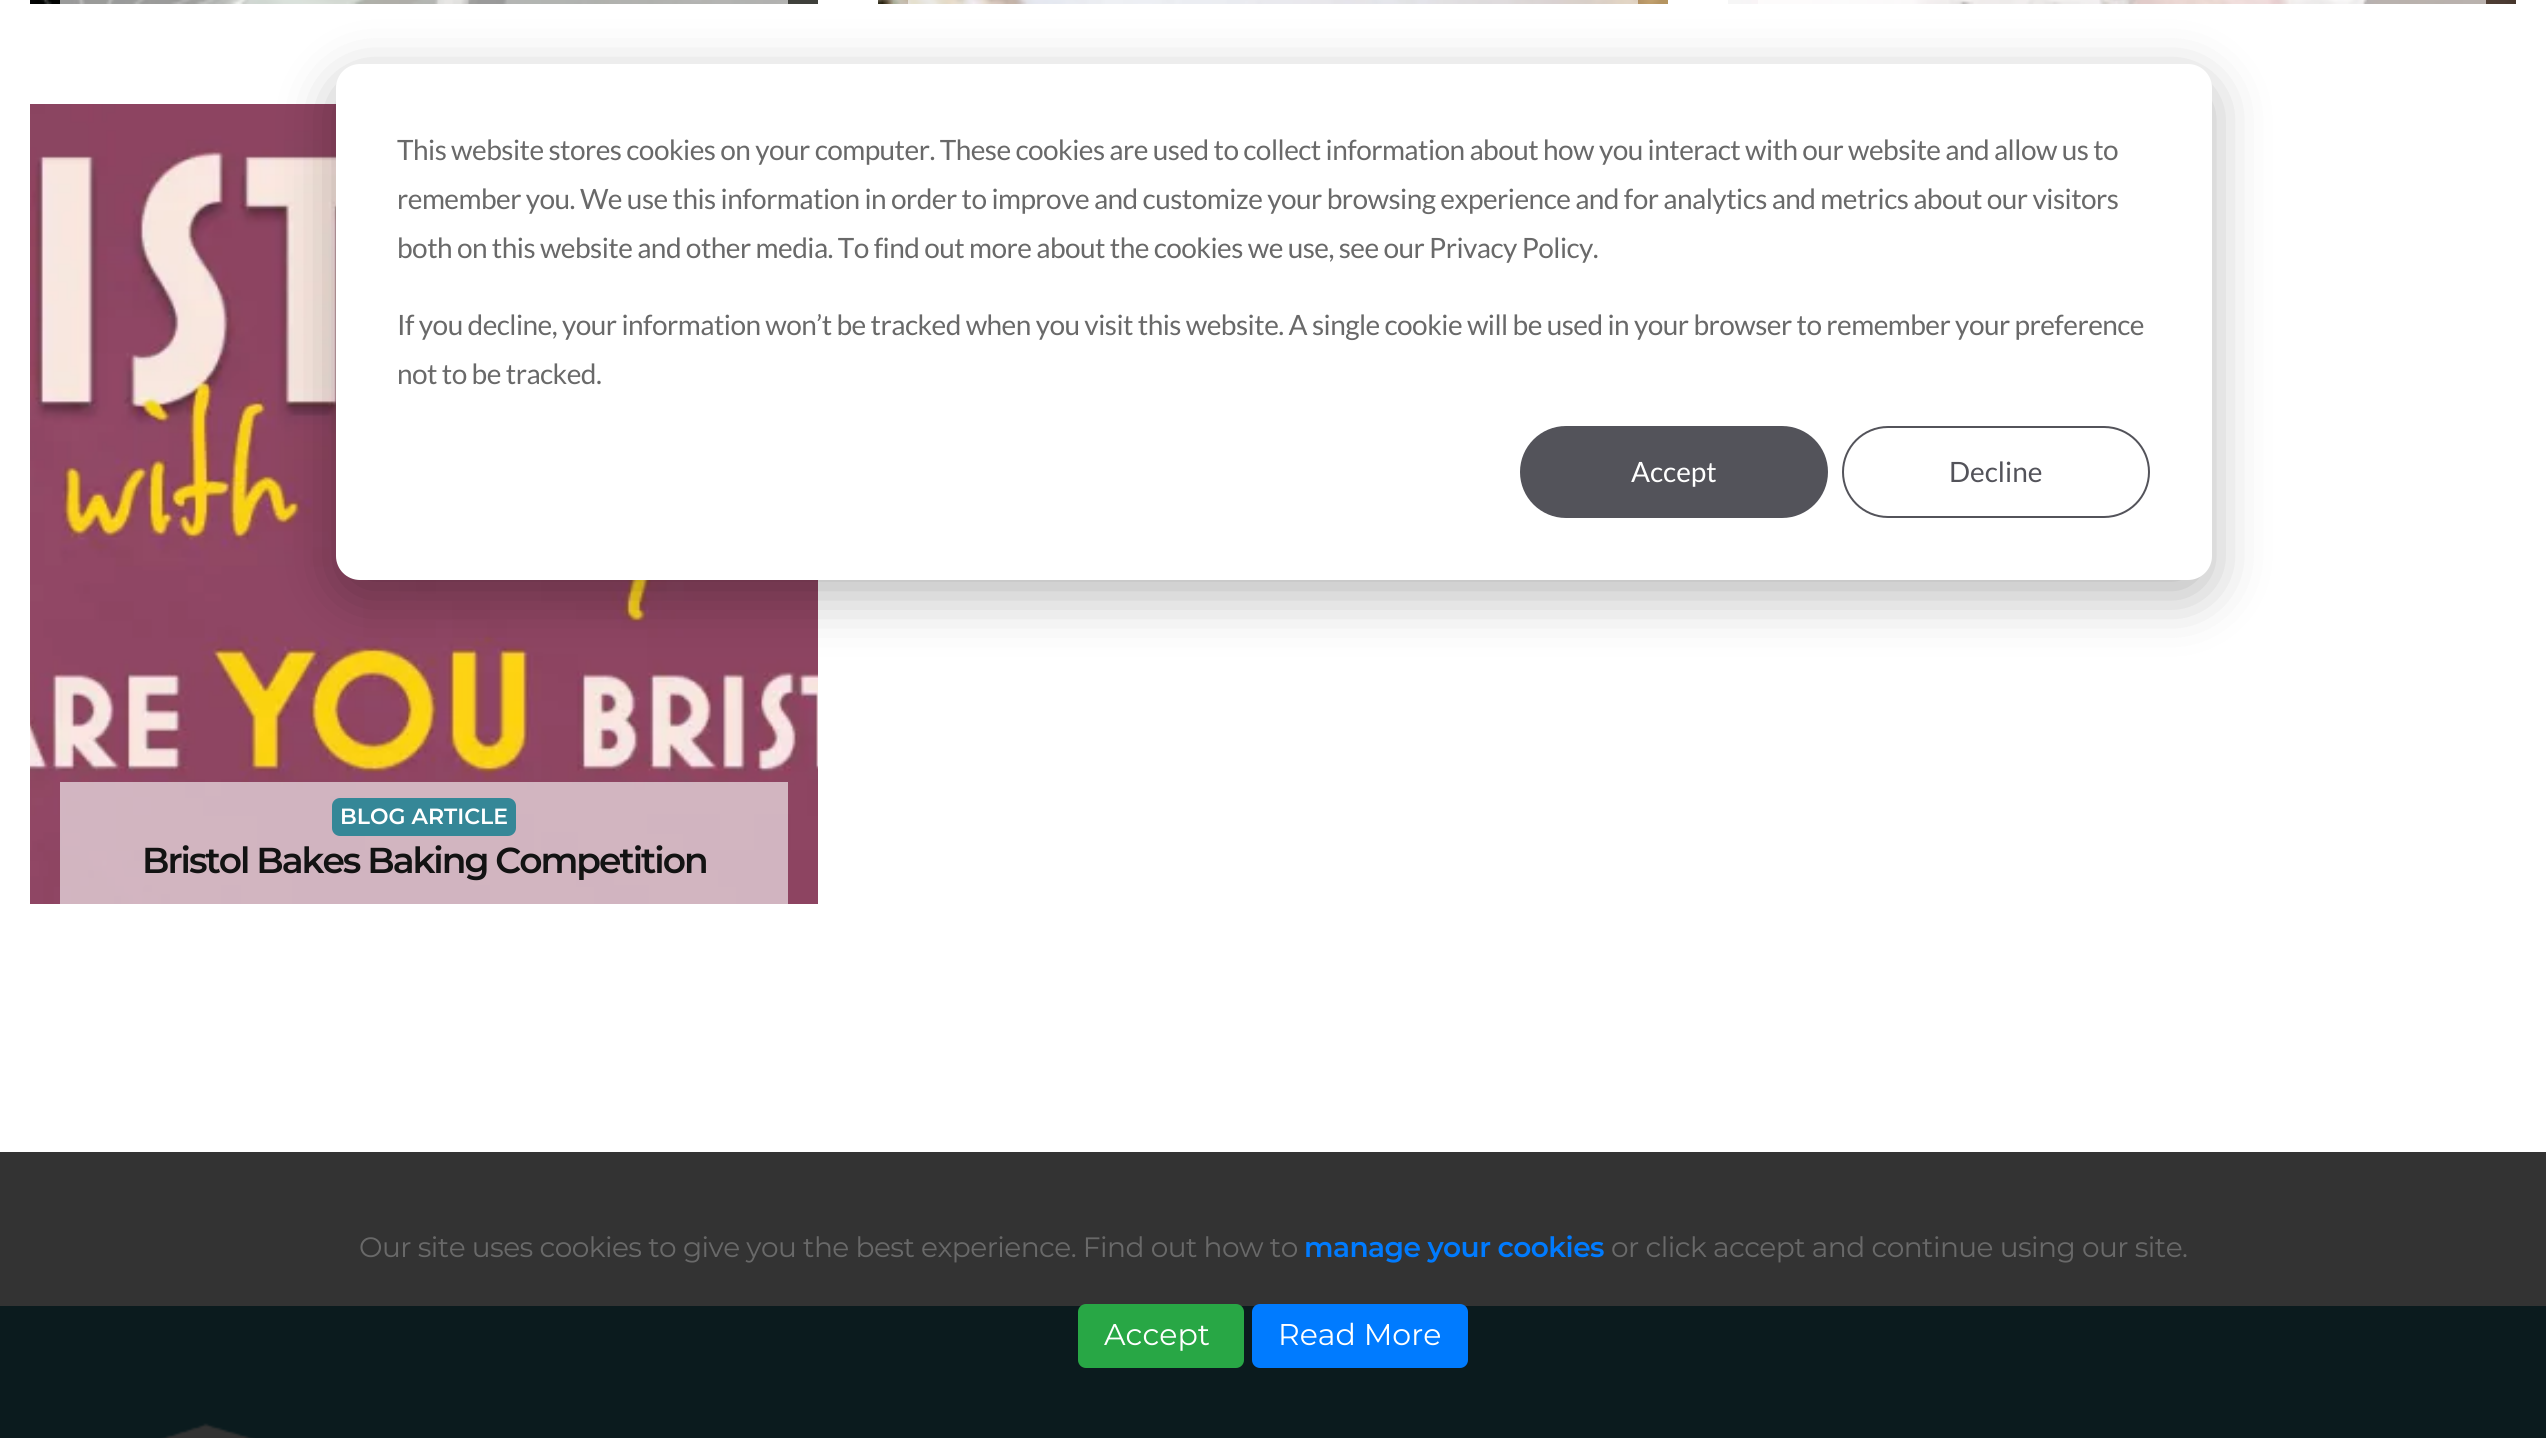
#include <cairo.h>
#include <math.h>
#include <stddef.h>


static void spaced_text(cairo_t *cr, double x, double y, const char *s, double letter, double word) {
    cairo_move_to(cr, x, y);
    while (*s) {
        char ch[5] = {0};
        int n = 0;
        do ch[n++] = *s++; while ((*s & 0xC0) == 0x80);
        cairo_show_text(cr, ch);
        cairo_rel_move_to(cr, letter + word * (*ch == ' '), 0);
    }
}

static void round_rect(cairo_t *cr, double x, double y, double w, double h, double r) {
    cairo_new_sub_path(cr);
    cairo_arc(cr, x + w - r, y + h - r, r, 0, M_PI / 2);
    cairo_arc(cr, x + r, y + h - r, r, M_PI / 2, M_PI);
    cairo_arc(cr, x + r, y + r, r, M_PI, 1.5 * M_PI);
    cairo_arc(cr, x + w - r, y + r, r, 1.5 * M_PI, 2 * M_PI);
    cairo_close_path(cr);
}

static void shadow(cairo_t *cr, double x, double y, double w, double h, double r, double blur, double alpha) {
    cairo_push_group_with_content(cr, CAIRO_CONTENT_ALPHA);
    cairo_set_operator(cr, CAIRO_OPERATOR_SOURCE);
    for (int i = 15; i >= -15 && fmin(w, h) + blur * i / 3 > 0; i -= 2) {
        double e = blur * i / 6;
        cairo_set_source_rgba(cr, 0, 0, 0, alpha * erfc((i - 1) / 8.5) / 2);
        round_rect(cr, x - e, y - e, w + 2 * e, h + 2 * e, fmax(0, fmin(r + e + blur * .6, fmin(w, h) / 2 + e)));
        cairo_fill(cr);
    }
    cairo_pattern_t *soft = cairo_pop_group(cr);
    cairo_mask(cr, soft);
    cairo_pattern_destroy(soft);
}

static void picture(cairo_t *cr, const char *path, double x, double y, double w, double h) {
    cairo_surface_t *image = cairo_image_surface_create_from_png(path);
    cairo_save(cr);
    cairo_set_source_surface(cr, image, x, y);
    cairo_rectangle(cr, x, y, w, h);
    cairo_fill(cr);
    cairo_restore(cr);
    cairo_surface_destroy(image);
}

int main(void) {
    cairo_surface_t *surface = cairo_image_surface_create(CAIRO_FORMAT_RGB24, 2546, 1438);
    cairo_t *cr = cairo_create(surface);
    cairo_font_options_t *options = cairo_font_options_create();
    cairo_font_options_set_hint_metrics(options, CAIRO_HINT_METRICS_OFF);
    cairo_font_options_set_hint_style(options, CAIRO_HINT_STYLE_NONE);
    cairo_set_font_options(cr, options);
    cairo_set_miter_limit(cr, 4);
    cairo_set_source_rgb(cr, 1, 1, 1);
    cairo_paint(cr);
    cairo_set_source_rgb(cr, 0.2, 0.2, 0.2);
    cairo_rectangle(cr, 0, 1152, 2546, 154);
    cairo_fill(cr);
    picture(cr, "img1.png", 30, 0, 788, 4);
    picture(cr, "img2.png", 878, 0, 790, 4);
    picture(cr, "img3.png", 1728, 0, 788, 4);
    picture(cr, "img4.png", 30, 104, 788, 800);
    cairo_set_source_rgb(cr, 0, 0, 0);
    shadow(cr, 336, 80, 1876, 516, 24, 28, 0.28);
    cairo_set_source_rgb(cr, 1, 1, 1);
    round_rect(cr, 336, 64, 1876, 516, 24);
    cairo_fill(cr);
    cairo_select_font_face(cr, "Lato", CAIRO_FONT_SLANT_NORMAL, CAIRO_FONT_WEIGHT_NORMAL);
    cairo_set_font_size(cr, 28);
    cairo_set_source_rgb(cr, 0.412, 0.412, 0.412);
    spaced_text(cr, 397, 160, "This website stores cookies on your computer. These cookies are used to collect information about how you interact with our website and allow us to", -0.54, 0);
    spaced_text(cr, 397, 209, "remember you. We use this information in order to improve and customize your browsing experience and for analytics and metrics about our visitors", -0.54, 0);
    spaced_text(cr, 397, 258, "both on this website and other media. To find out more about the cookies we use, see our Privacy Policy.", -0.54, 0);
    spaced_text(cr, 397, 335, "If you decline, your information won’t be tracked when you visit this website. A single cookie will be used in your browser to remember your preference", -0.54, 0);
    spaced_text(cr, 397, 384, "not to be tracked.", -0.54, 0);
    cairo_set_source_rgb(cr, 0.325, 0.325, 0.353);
    round_rect(cr, 1521, 427, 306, 90, 45);
    cairo_fill_preserve(cr);
    cairo_stroke(cr);
    cairo_set_source_rgb(cr, 1, 1, 1);
    cairo_move_to(cr, 1631, 482);
    cairo_show_text(cr, "Accept");
    round_rect(cr, 1843, 427, 306, 90, 45);
    cairo_set_source_rgb(cr, 0.325, 0.325, 0.353);
    cairo_stroke(cr);
    cairo_move_to(cr, 1949, 482);
    cairo_show_text(cr, "Decline");
    cairo_set_source_rgba(cr, 1, 1, 1, 0.6);
    cairo_rectangle(cr, 60, 782, 728, 122);
    cairo_fill(cr);
    cairo_set_source_rgb(cr, 0.208, 0.529, 0.592);
    round_rect(cr, 332, 798, 184, 38, 8);
    cairo_fill(cr);
    cairo_select_font_face(cr, "Montserrat SemiBold", CAIRO_FONT_SLANT_NORMAL, CAIRO_FONT_WEIGHT_NORMAL);
    cairo_set_font_size(cr, 22);
    cairo_set_source_rgb(cr, 1, 1, 1);
    cairo_move_to(cr, 340, 824);
    cairo_show_text(cr, "BLOG ARTICLE");
    cairo_set_font_size(cr, 36);
    cairo_set_source_rgb(cr, 0.078, 0.078, 0.078);
    spaced_text(cr, 142, 873, "Bristol Bakes Baking Competition", -2, 0);
    cairo_select_font_face(cr, "Montserrat", CAIRO_FONT_SLANT_NORMAL, CAIRO_FONT_WEIGHT_NORMAL);
    cairo_set_font_size(cr, 28);
    cairo_set_source_rgb(cr, 0.412, 0.412, 0.412);
    spaced_text(cr, 359, 1257, "Our site uses cookies to give you the best experience. Find out how to", -0.54, 0);
    cairo_select_font_face(cr, "Montserrat SemiBold", CAIRO_FONT_SLANT_NORMAL, CAIRO_FONT_WEIGHT_NORMAL);
    cairo_set_source_rgb(cr, 0, 0.482, 1);
    spaced_text(cr, 1304, 1257, "manage your cookies", -0.54, 0);
    cairo_select_font_face(cr, "Montserrat", CAIRO_FONT_SLANT_NORMAL, CAIRO_FONT_WEIGHT_NORMAL);
    cairo_set_source_rgb(cr, 0.412, 0.412, 0.412);
    spaced_text(cr, 1611, 1257, "or click accept and continue using our site.", -0.54, 0);
    cairo_set_source_rgb(cr, 0.043, 0.106, 0.118);
    cairo_rectangle(cr, 0, 1306, 2546, 132);
    cairo_fill(cr);
    cairo_set_source_rgb(cr, 0.157, 0.655, 0.271);
    round_rect(cr, 1079, 1305, 164, 62, 7);
    cairo_fill_preserve(cr);
    cairo_stroke(cr);
    cairo_set_font_size(cr, 30);
    cairo_set_source_rgb(cr, 1, 1, 1);
    cairo_move_to(cr, 1104, 1345);
    cairo_show_text(cr, "Accept");
    cairo_set_source_rgb(cr, 0, 0.482, 1);
    round_rect(cr, 1253, 1305, 214, 62, 7);
    cairo_fill_preserve(cr);
    cairo_stroke(cr);
    cairo_set_source_rgb(cr, 1, 1, 1);
    cairo_move_to(cr, 1278, 1345);
    cairo_show_text(cr, "Read More");
    picture(cr, "img5.png", 160, 1423, 95, 15);
    cairo_surface_write_to_png(surface, "page.png");
    cairo_font_options_destroy(options);
    cairo_destroy(cr);
    cairo_surface_destroy(surface);
    return 0;
}
